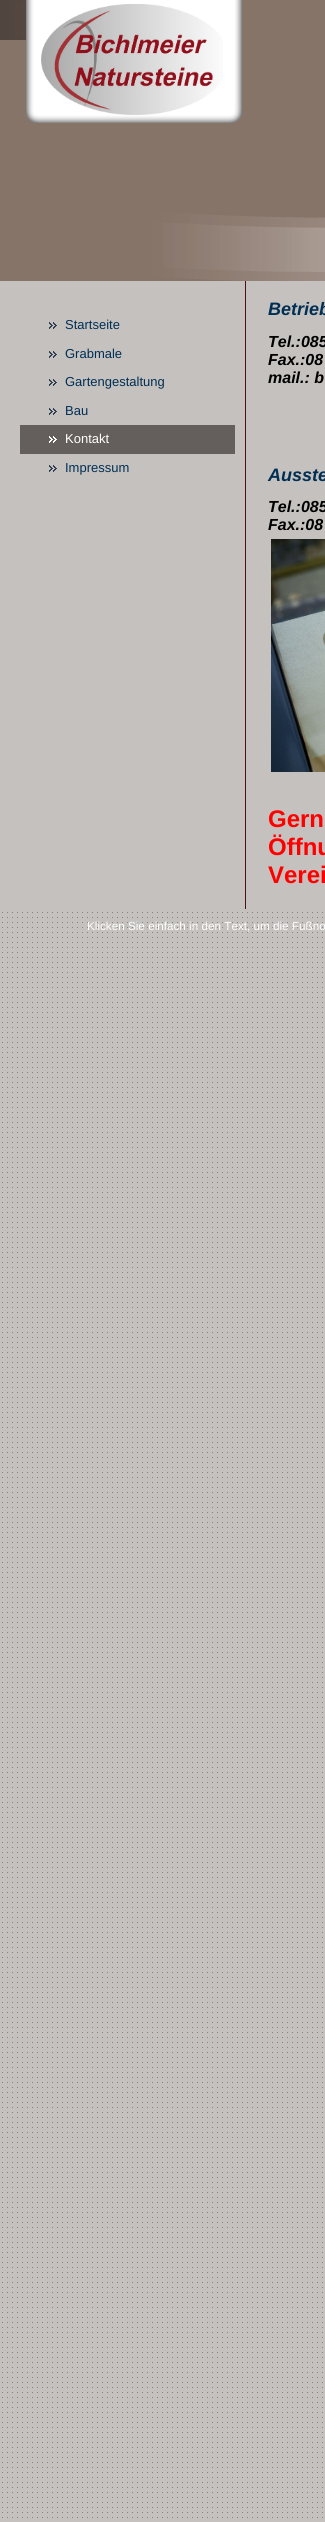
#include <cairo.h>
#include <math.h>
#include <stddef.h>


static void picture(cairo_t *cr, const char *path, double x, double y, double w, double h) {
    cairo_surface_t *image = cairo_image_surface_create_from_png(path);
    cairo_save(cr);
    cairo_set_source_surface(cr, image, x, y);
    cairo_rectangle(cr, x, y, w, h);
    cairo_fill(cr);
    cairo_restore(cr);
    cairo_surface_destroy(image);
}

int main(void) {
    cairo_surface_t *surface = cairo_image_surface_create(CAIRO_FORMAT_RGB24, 325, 2522);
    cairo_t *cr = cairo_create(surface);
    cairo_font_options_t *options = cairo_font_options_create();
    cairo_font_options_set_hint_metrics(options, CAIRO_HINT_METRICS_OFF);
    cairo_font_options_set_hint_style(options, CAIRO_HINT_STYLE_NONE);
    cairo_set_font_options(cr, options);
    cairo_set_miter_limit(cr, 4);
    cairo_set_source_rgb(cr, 0.773, 0.757, 0.745);
    cairo_paint(cr);
    picture(cr, "img1.png", 2, 912, 321, 1606);
    cairo_set_source_rgb(cr, 0.529, 0.455, 0.412);
    cairo_rectangle(cr, 0, 0, 325, 281);
    cairo_fill(cr);
    picture(cr, "img2.png", 0, 0, 325, 281);
    picture(cr, "img3.png", 41, 4, 182, 111);
    picture(cr, "img4.png", 49, 322, 8, 7);
    cairo_select_font_face(cr, "Liberation Sans", CAIRO_FONT_SLANT_NORMAL, CAIRO_FONT_WEIGHT_NORMAL);
    cairo_set_font_size(cr, 13);
    cairo_set_source_rgb(cr, 0, 0.184, 0.329);
    cairo_move_to(cr, 65, 329);
    cairo_show_text(cr, "Startseite");
    picture(cr, "img4.png", 49, 351, 8, 7);
    cairo_move_to(cr, 65, 358);
    cairo_show_text(cr, "Grabmale");
    picture(cr, "img4.png", 49, 379, 8, 7);
    cairo_move_to(cr, 65, 386);
    cairo_show_text(cr, "Gartengestaltung");
    picture(cr, "img4.png", 49, 408, 8, 7);
    cairo_move_to(cr, 65, 415);
    cairo_show_text(cr, "Bau");
    cairo_set_source_rgb(cr, 0.392, 0.373, 0.361);
    cairo_rectangle(cr, 20, 425, 215, 29);
    cairo_fill(cr);
    picture(cr, "img5.png", 49, 436, 8, 7);
    cairo_set_source_rgb(cr, 1, 1, 1);
    cairo_move_to(cr, 65, 443);
    cairo_show_text(cr, "Kontakt");
    picture(cr, "img4.png", 49, 465, 8, 7);
    cairo_set_source_rgb(cr, 0, 0.184, 0.329);
    cairo_move_to(cr, 65, 472);
    cairo_show_text(cr, "Impressum");
    cairo_set_source_rgb(cr, 0.318, 0.055, 0.055);
    cairo_rectangle(cr, 245, 281, 1, 628);
    cairo_fill(cr);
    cairo_select_font_face(cr, "Liberation Sans", CAIRO_FONT_SLANT_ITALIC, CAIRO_FONT_WEIGHT_BOLD);
    cairo_set_font_size(cr, 18);
    cairo_set_source_rgb(cr, 0, 0.184, 0.329);
    cairo_move_to(cr, 268, 315);
    cairo_show_text(cr, "Betrieb");
    cairo_set_font_size(cr, 16);
    cairo_set_source_rgb(cr, 0, 0, 0);
    cairo_move_to(cr, 268, 347);
    cairo_show_text(cr, "Tel.:085");
    cairo_move_to(cr, 268, 365);
    cairo_show_text(cr, "Fax.:08");
    cairo_move_to(cr, 268, 383);
    cairo_show_text(cr, "mail.: b");
    cairo_set_font_size(cr, 18);
    cairo_set_source_rgb(cr, 0, 0.184, 0.329);
    cairo_move_to(cr, 268, 481);
    cairo_show_text(cr, "Ausste");
    cairo_set_font_size(cr, 16);
    cairo_set_source_rgb(cr, 0, 0, 0);
    cairo_move_to(cr, 268, 512);
    cairo_show_text(cr, "Tel.:085");
    cairo_move_to(cr, 268, 530);
    cairo_show_text(cr, "Fax.:08");
    picture(cr, "img6.png", 271, 539, 54, 233);
    cairo_select_font_face(cr, "Liberation Sans", CAIRO_FONT_SLANT_NORMAL, CAIRO_FONT_WEIGHT_BOLD);
    cairo_set_font_size(cr, 24);
    cairo_set_source_rgb(cr, 1, 0, 0);
    cairo_move_to(cr, 268, 827);
    cairo_show_text(cr, "Gern");
    cairo_move_to(cr, 268, 855);
    cairo_show_text(cr, "Öffnu");
    cairo_move_to(cr, 268, 883);
    cairo_show_text(cr, "Verei");
    cairo_select_font_face(cr, "Liberation Sans", CAIRO_FONT_SLANT_NORMAL, CAIRO_FONT_WEIGHT_NORMAL);
    cairo_set_font_size(cr, 11.7);
    cairo_set_source_rgb(cr, 1, 1, 1);
    cairo_move_to(cr, 87, 930);
    cairo_show_text(cr, "Klicken Sie einfach in den Text, um die Fußno");
    cairo_surface_write_to_png(surface, "page.png");
    cairo_font_options_destroy(options);
    cairo_destroy(cr);
    cairo_surface_destroy(surface);
    return 0;
}
